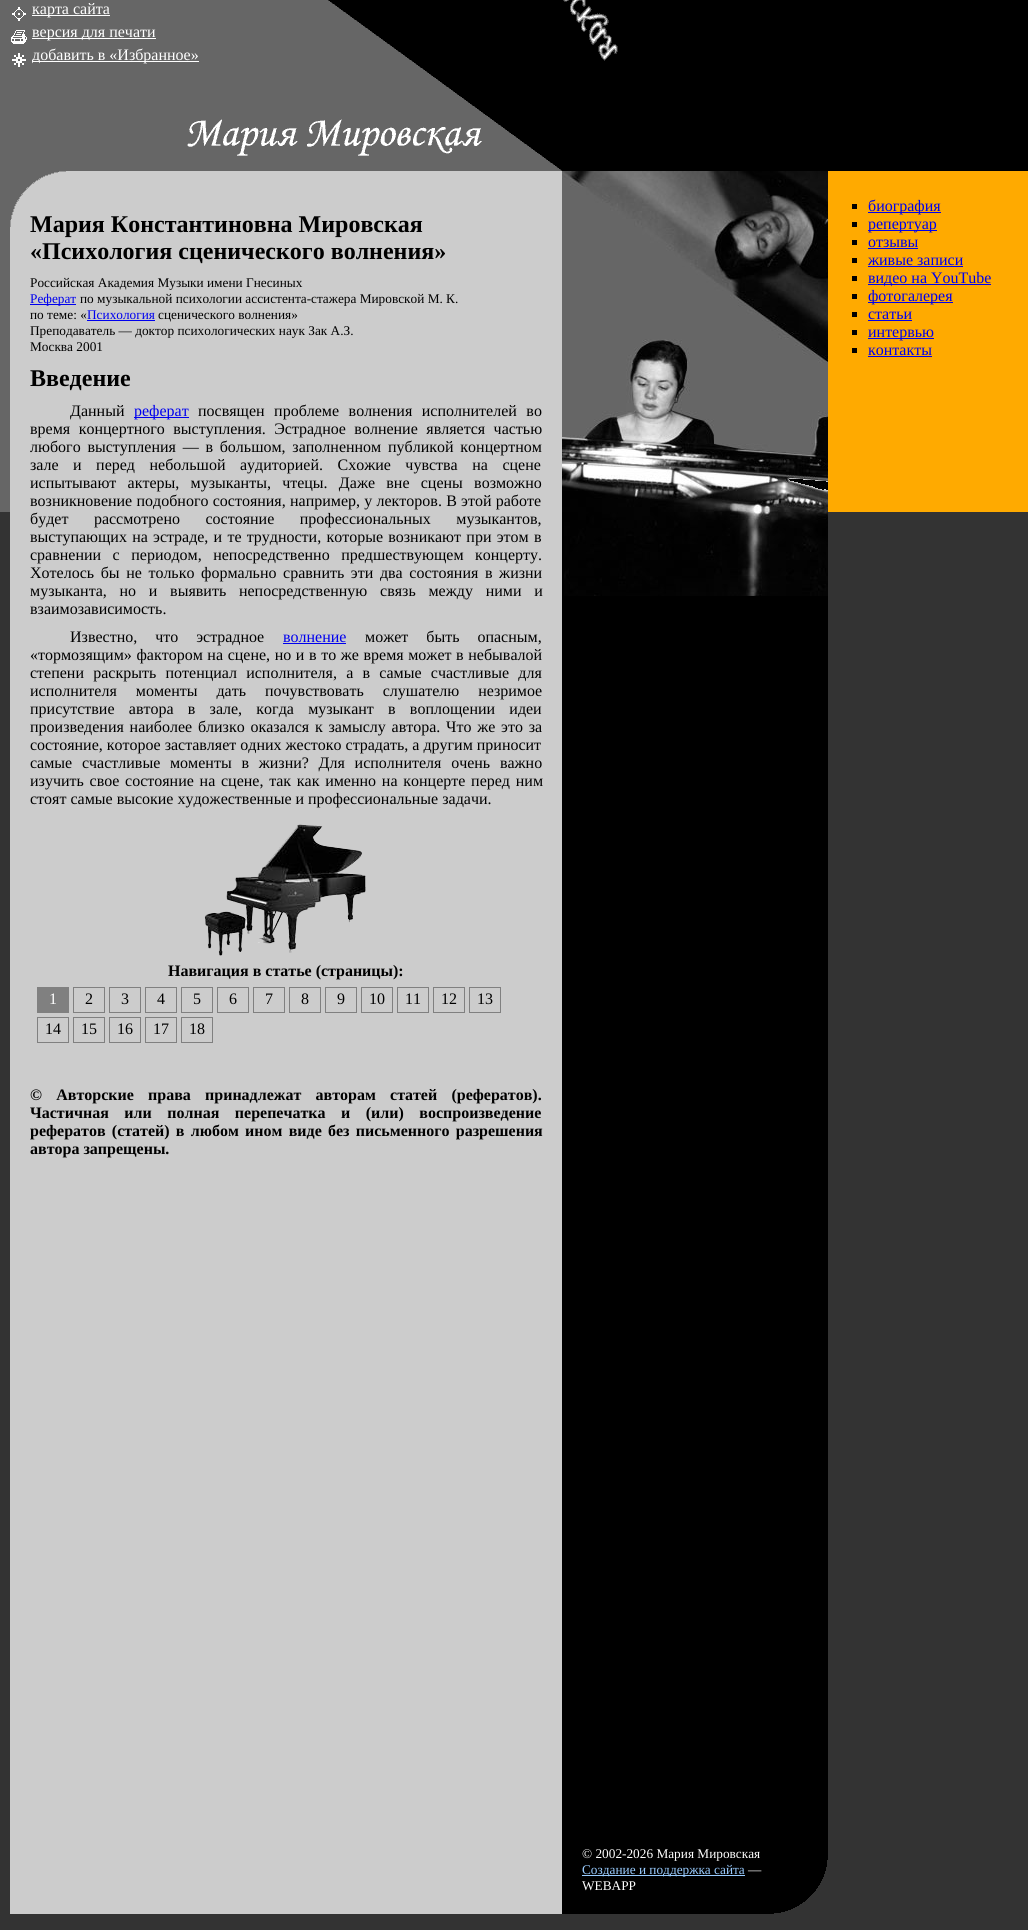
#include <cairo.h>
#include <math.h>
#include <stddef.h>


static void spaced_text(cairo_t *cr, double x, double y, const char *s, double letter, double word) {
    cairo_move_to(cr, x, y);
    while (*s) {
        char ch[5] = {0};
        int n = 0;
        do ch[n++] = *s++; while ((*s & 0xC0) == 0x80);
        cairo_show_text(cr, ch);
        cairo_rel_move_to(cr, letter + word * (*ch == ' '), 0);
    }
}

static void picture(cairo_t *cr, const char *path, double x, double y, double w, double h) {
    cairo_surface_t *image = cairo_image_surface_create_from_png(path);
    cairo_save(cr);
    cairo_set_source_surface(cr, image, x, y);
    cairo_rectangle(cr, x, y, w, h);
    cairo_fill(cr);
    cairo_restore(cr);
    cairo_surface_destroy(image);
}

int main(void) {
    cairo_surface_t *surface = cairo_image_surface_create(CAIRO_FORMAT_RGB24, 1028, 1930);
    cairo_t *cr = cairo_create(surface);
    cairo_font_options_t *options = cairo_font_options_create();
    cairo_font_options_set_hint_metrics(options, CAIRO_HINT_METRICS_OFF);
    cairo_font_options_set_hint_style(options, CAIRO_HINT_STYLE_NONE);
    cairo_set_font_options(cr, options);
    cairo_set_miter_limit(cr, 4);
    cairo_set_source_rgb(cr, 0.4, 0.4, 0.4);
    cairo_paint(cr);
    picture(cr, "img1.png", 328, 0, 234, 171);
    picture(cr, "img2.png", 12, 7, 14, 14);
    cairo_set_source_rgb(cr, 1, 1, 1);
    cairo_rectangle(cr, 32, 15, 78, 1);
    cairo_fill(cr);
    cairo_select_font_face(cr, "Liberation Serif", CAIRO_FONT_SLANT_NORMAL, CAIRO_FONT_WEIGHT_NORMAL);
    cairo_set_font_size(cr, 16);
    cairo_move_to(cr, 32, 14);
    cairo_show_text(cr, "карта сайта");
    picture(cr, "img3.png", 11, 30, 16, 14);
    cairo_rectangle(cr, 32, 38, 124, 1);
    cairo_fill(cr);
    cairo_move_to(cr, 32, 37);
    cairo_show_text(cr, "версия для печати");
    picture(cr, "img4.png", 12, 53, 14, 14);
    cairo_rectangle(cr, 32, 61, 167, 1);
    cairo_fill(cr);
    cairo_move_to(cr, 32, 60);
    cairo_show_text(cr, "добавить в «Избранное»");
    picture(cr, "img5.png", 187, 119, 295, 37);
    cairo_set_source_rgb(cr, 0.2, 0.2, 0.2);
    cairo_rectangle(cr, 0, 512, 10, 1402);
    cairo_fill(cr);
    cairo_set_source_rgb(cr, 0.8, 0.8, 0.8);
    cairo_rectangle(cr, 10, 171, 552, 1743);
    cairo_fill(cr);
    picture(cr, "img6.png", 10, 171, 56, 56);
    cairo_select_font_face(cr, "Liberation Serif", CAIRO_FONT_SLANT_NORMAL, CAIRO_FONT_WEIGHT_BOLD);
    cairo_set_font_size(cr, 24);
    cairo_set_source_rgb(cr, 0, 0, 0);
    cairo_move_to(cr, 30, 232);
    cairo_show_text(cr, "Мария Константиновна Мировская");
    cairo_move_to(cr, 30, 259);
    cairo_show_text(cr, "«Психология сценического волнения»");
    cairo_select_font_face(cr, "Liberation Serif", CAIRO_FONT_SLANT_NORMAL, CAIRO_FONT_WEIGHT_NORMAL);
    cairo_set_font_size(cr, 13.3);
    cairo_move_to(cr, 30, 287);
    cairo_show_text(cr, "Российская Академия Музыки имени Гнесиных");
    cairo_set_source_rgb(cr, 0, 0, 0.933);
    cairo_rectangle(cr, 30, 304, 46, 1);
    cairo_fill(cr);
    cairo_move_to(cr, 30, 303);
    cairo_show_text(cr, "Реферат");
    cairo_set_source_rgb(cr, 0, 0, 0);
    cairo_move_to(cr, 80, 303);
    cairo_show_text(cr, "по музыкальной психологии ассистента-стажера Мировской М. К.");
    cairo_move_to(cr, 30, 319);
    cairo_show_text(cr, "по теме: «");
    cairo_set_source_rgb(cr, 0, 0, 0.933);
    cairo_rectangle(cr, 87, 320, 68, 1);
    cairo_fill(cr);
    cairo_move_to(cr, 87, 319);
    cairo_show_text(cr, "Психология");
    cairo_set_source_rgb(cr, 0, 0, 0);
    cairo_move_to(cr, 158, 319);
    cairo_show_text(cr, "сценического волнения»");
    cairo_move_to(cr, 30, 335);
    cairo_show_text(cr, "Преподаватель — доктор психологических наук Зак А.З.");
    cairo_move_to(cr, 30, 351);
    cairo_show_text(cr, "Москва 2001");
    cairo_select_font_face(cr, "Liberation Serif", CAIRO_FONT_SLANT_NORMAL, CAIRO_FONT_WEIGHT_BOLD);
    cairo_set_font_size(cr, 24);
    cairo_move_to(cr, 30, 386);
    cairo_show_text(cr, "Введение");
    cairo_select_font_face(cr, "Liberation Serif", CAIRO_FONT_SLANT_NORMAL, CAIRO_FONT_WEIGHT_NORMAL);
    cairo_set_font_size(cr, 16);
    cairo_move_to(cr, 70, 416);
    cairo_show_text(cr, "Данный");
    cairo_set_source_rgb(cr, 0, 0, 0.933);
    cairo_rectangle(cr, 134, 417, 55, 1);
    cairo_fill(cr);
    cairo_move_to(cr, 134, 416);
    cairo_show_text(cr, "реферат");
    cairo_set_source_rgb(cr, 0, 0, 0);
    spaced_text(cr, 198, 416, "посвящен проблеме волнения исполнителей во", 0, 5.5);
    spaced_text(cr, 30, 434, "время концертного выступления. Эстрадное волнение является частью", 0, 4.5);
    spaced_text(cr, 30, 452, "любого выступления — в большом, заполненном публикой концертном", 0, 2.75);
    spaced_text(cr, 30, 470, "зале и перед небольшой аудиторией. Схожие чувства на сцене", 0, 10.5);
    spaced_text(cr, 30, 488, "испытывают актеры, музыканты, чтецы. Даже вне сцены возможно", 0, 7.25);
    spaced_text(cr, 30, 506, "возникновение подобного состояния, например, у лекторов. В этой работе", 0, 0.25);
    spaced_text(cr, 30, 524, "будет рассмотрено состояние профессиональных музыкантов,", 0, 21.5);
    spaced_text(cr, 30, 542, "выступающих на эстраде, и те трудности, которые возникают при этом в", 0, 1.25);
    spaced_text(cr, 30, 560, "сравнении с периодом, непосредственно предшествующем концерту.", 0, 7.5);
    spaced_text(cr, 30, 578, "Хотелось бы не только формально сравнить эти два состояния в жизни", 0, 2.6);
    spaced_text(cr, 30, 596, "музыканта, но и выявить непосредственную связь между ними и", 0, 8.75);
    cairo_move_to(cr, 30, 614);
    cairo_show_text(cr, "взаимозависимость.");
    spaced_text(cr, 70, 642, "Известно, что эстрадное", 0, 14);
    cairo_set_source_rgb(cr, 0, 0, 0.933);
    cairo_move_to(cr, 283, 642);
    cairo_show_text(cr, "волнение");
    cairo_rectangle(cr, 283, 643, 63, 1);
    cairo_fill(cr);
    cairo_set_source_rgb(cr, 0, 0, 0);
    spaced_text(cr, 365, 642, "может быть опасным,", 0, 14);
    spaced_text(cr, 30, 660, "«тормозящим» фактором на сцене, но и в то же время может в небывалой", 0, 0.6);
    spaced_text(cr, 30, 678, "степени раскрыть потенциал исполнителя, а в самые счастливые для", 0, 5.25);
    spaced_text(cr, 30, 696, "исполнителя моменты дать почувствовать слушателю незримое", 0, 15);
    spaced_text(cr, 30, 714, "присутствие автора в зале, когда музыкант в воплощении идеи", 0, 10.25);
    spaced_text(cr, 30, 732, "произведения наиболее близко оказался к замыслу автора. Что же это за", 0, 1.75);
    cairo_move_to(cr, 30, 750);
    cairo_show_text(cr, "состояние, которое заставляет одних жестоко страдать, а другим приносит");
    spaced_text(cr, 30, 768, "самые счастливые моменты в жизни? Для исполнителя очень важно", 0, 5.75);
    spaced_text(cr, 30, 786, "изучить свое состояние на сцене, так как именно на концерте перед ним", 0, 1.75);
    cairo_move_to(cr, 30, 804);
    cairo_show_text(cr, "стоят самые высокие художественные и профессиональные задачи.");
    picture(cr, "img7.png", 204, 824, 162, 132);
    cairo_select_font_face(cr, "Liberation Serif", CAIRO_FONT_SLANT_NORMAL, CAIRO_FONT_WEIGHT_BOLD);
    cairo_move_to(cr, 168, 976);
    cairo_show_text(cr, "Навигация в статье (страницы):");
    cairo_set_source_rgb(cr, 0.502, 0.502, 0.502);
    cairo_rectangle(cr, 37, 987, 32, 26);
    cairo_fill(cr);
    cairo_select_font_face(cr, "Liberation Serif", CAIRO_FONT_SLANT_NORMAL, CAIRO_FONT_WEIGHT_NORMAL);
    cairo_set_source_rgb(cr, 1, 1, 1);
    cairo_move_to(cr, 49, 1004);
    cairo_show_text(cr, "1");
    cairo_rectangle(cr, 73.5, 987.5, 31, 25);
    cairo_set_source_rgb(cr, 0.502, 0.502, 0.502);
    cairo_set_line_width(cr, 1);
    cairo_stroke(cr);
    cairo_set_source_rgb(cr, 0, 0, 0);
    cairo_move_to(cr, 85, 1004);
    cairo_show_text(cr, "2");
    cairo_rectangle(cr, 109.5, 987.5, 31, 25);
    cairo_set_source_rgb(cr, 0.502, 0.502, 0.502);
    cairo_stroke(cr);
    cairo_set_source_rgb(cr, 0, 0, 0);
    cairo_move_to(cr, 121, 1004);
    cairo_show_text(cr, "3");
    cairo_rectangle(cr, 145.5, 987.5, 31, 25);
    cairo_set_source_rgb(cr, 0.502, 0.502, 0.502);
    cairo_stroke(cr);
    cairo_set_source_rgb(cr, 0, 0, 0);
    cairo_move_to(cr, 157, 1004);
    cairo_show_text(cr, "4");
    cairo_rectangle(cr, 181.5, 987.5, 31, 25);
    cairo_set_source_rgb(cr, 0.502, 0.502, 0.502);
    cairo_stroke(cr);
    cairo_set_source_rgb(cr, 0, 0, 0);
    cairo_move_to(cr, 193, 1004);
    cairo_show_text(cr, "5");
    cairo_rectangle(cr, 217.5, 987.5, 31, 25);
    cairo_set_source_rgb(cr, 0.502, 0.502, 0.502);
    cairo_stroke(cr);
    cairo_set_source_rgb(cr, 0, 0, 0);
    cairo_move_to(cr, 229, 1004);
    cairo_show_text(cr, "6");
    cairo_rectangle(cr, 253.5, 987.5, 31, 25);
    cairo_set_source_rgb(cr, 0.502, 0.502, 0.502);
    cairo_stroke(cr);
    cairo_set_source_rgb(cr, 0, 0, 0);
    cairo_move_to(cr, 265, 1004);
    cairo_show_text(cr, "7");
    cairo_rectangle(cr, 289.5, 987.5, 31, 25);
    cairo_set_source_rgb(cr, 0.502, 0.502, 0.502);
    cairo_stroke(cr);
    cairo_set_source_rgb(cr, 0, 0, 0);
    cairo_move_to(cr, 301, 1004);
    cairo_show_text(cr, "8");
    cairo_rectangle(cr, 325.5, 987.5, 31, 25);
    cairo_set_source_rgb(cr, 0.502, 0.502, 0.502);
    cairo_stroke(cr);
    cairo_set_source_rgb(cr, 0, 0, 0);
    cairo_move_to(cr, 337, 1004);
    cairo_show_text(cr, "9");
    cairo_rectangle(cr, 361.5, 987.5, 31, 25);
    cairo_set_source_rgb(cr, 0.502, 0.502, 0.502);
    cairo_stroke(cr);
    cairo_set_source_rgb(cr, 0, 0, 0);
    cairo_move_to(cr, 369, 1004);
    cairo_show_text(cr, "10");
    cairo_rectangle(cr, 397.5, 987.5, 31, 25);
    cairo_set_source_rgb(cr, 0.502, 0.502, 0.502);
    cairo_stroke(cr);
    cairo_set_source_rgb(cr, 0, 0, 0);
    cairo_move_to(cr, 405, 1004);
    cairo_show_text(cr, "11");
    cairo_rectangle(cr, 433.5, 987.5, 31, 25);
    cairo_set_source_rgb(cr, 0.502, 0.502, 0.502);
    cairo_stroke(cr);
    cairo_set_source_rgb(cr, 0, 0, 0);
    cairo_move_to(cr, 441, 1004);
    cairo_show_text(cr, "12");
    cairo_rectangle(cr, 469.5, 987.5, 31, 25);
    cairo_set_source_rgb(cr, 0.502, 0.502, 0.502);
    cairo_stroke(cr);
    cairo_set_source_rgb(cr, 0, 0, 0);
    cairo_move_to(cr, 477, 1004);
    cairo_show_text(cr, "13");
    cairo_rectangle(cr, 37.5, 1017.5, 31, 25);
    cairo_set_source_rgb(cr, 0.502, 0.502, 0.502);
    cairo_stroke(cr);
    cairo_set_source_rgb(cr, 0, 0, 0);
    cairo_move_to(cr, 45, 1034);
    cairo_show_text(cr, "14");
    cairo_rectangle(cr, 73.5, 1017.5, 31, 25);
    cairo_set_source_rgb(cr, 0.502, 0.502, 0.502);
    cairo_stroke(cr);
    cairo_set_source_rgb(cr, 0, 0, 0);
    cairo_move_to(cr, 81, 1034);
    cairo_show_text(cr, "15");
    cairo_rectangle(cr, 109.5, 1017.5, 31, 25);
    cairo_set_source_rgb(cr, 0.502, 0.502, 0.502);
    cairo_stroke(cr);
    cairo_set_source_rgb(cr, 0, 0, 0);
    cairo_move_to(cr, 117, 1034);
    cairo_show_text(cr, "16");
    cairo_rectangle(cr, 145.5, 1017.5, 31, 25);
    cairo_set_source_rgb(cr, 0.502, 0.502, 0.502);
    cairo_stroke(cr);
    cairo_set_source_rgb(cr, 0, 0, 0);
    cairo_move_to(cr, 153, 1034);
    cairo_show_text(cr, "17");
    cairo_rectangle(cr, 181.5, 1017.5, 31, 25);
    cairo_set_source_rgb(cr, 0.502, 0.502, 0.502);
    cairo_stroke(cr);
    cairo_set_source_rgb(cr, 0, 0, 0);
    cairo_move_to(cr, 189, 1034);
    cairo_show_text(cr, "18");
    cairo_select_font_face(cr, "Liberation Serif", CAIRO_FONT_SLANT_NORMAL, CAIRO_FONT_WEIGHT_BOLD);
    spaced_text(cr, 30, 1100, "© Авторские права принадлежат авторам статей (рефератов).", 0, 10.25);
    spaced_text(cr, 30, 1118, "Частичная или полная перепечатка и (или) воспроизведение", 0, 11.5);
    spaced_text(cr, 30, 1136, "рефератов (статей) в любом ином виде без письменного разрешения", 0, 2.25);
    cairo_move_to(cr, 30, 1154);
    cairo_show_text(cr, "автора запрещены.");
    cairo_rectangle(cr, 562, 0, 466, 171);
    cairo_fill(cr);
    picture(cr, "img8.png", 563, 0, 55, 61);
    picture(cr, "img9.png", 562, 171, 266, 341);
    cairo_set_source_rgb(cr, 1, 0.667, 0);
    cairo_rectangle(cr, 828, 171, 200, 341);
    cairo_fill(cr);
    cairo_set_source_rgb(cr, 0, 0, 0);
    cairo_rectangle(cr, 852, 204, 5, 5);
    cairo_fill(cr);
    cairo_set_source_rgb(cr, 0, 0, 0.933);
    cairo_rectangle(cr, 868, 212, 73, 1);
    cairo_fill(cr);
    cairo_select_font_face(cr, "Liberation Serif", CAIRO_FONT_SLANT_NORMAL, CAIRO_FONT_WEIGHT_NORMAL);
    cairo_move_to(cr, 868, 211);
    cairo_show_text(cr, "биография");
    cairo_set_source_rgb(cr, 0, 0, 0);
    cairo_rectangle(cr, 852, 222, 5, 5);
    cairo_fill(cr);
    cairo_set_source_rgb(cr, 0, 0, 0.933);
    cairo_rectangle(cr, 868, 230, 69, 1);
    cairo_fill(cr);
    cairo_move_to(cr, 868, 229);
    cairo_show_text(cr, "репертуар");
    cairo_set_source_rgb(cr, 0, 0, 0);
    cairo_rectangle(cr, 852, 240, 5, 5);
    cairo_fill(cr);
    cairo_set_source_rgb(cr, 0, 0, 0.933);
    cairo_move_to(cr, 868, 247);
    cairo_show_text(cr, "отзывы");
    cairo_rectangle(cr, 868, 248, 50, 1);
    cairo_fill(cr);
    cairo_set_source_rgb(cr, 0, 0, 0);
    cairo_rectangle(cr, 852, 258, 5, 5);
    cairo_fill(cr);
    cairo_set_source_rgb(cr, 0, 0, 0.933);
    cairo_move_to(cr, 868, 265);
    cairo_show_text(cr, "живые записи");
    cairo_rectangle(cr, 868, 266, 95, 1);
    cairo_fill(cr);
    cairo_set_source_rgb(cr, 0, 0, 0);
    cairo_rectangle(cr, 852, 276, 5, 5);
    cairo_fill(cr);
    cairo_set_source_rgb(cr, 0, 0, 0.933);
    cairo_rectangle(cr, 868, 284, 123, 1);
    cairo_fill(cr);
    cairo_move_to(cr, 868, 283);
    cairo_show_text(cr, "видео на YouTube");
    cairo_set_source_rgb(cr, 0, 0, 0);
    cairo_rectangle(cr, 852, 294, 5, 5);
    cairo_fill(cr);
    cairo_set_source_rgb(cr, 0, 0, 0.933);
    cairo_rectangle(cr, 868, 302, 85, 1);
    cairo_fill(cr);
    cairo_move_to(cr, 868, 301);
    cairo_show_text(cr, "фотогалерея");
    cairo_set_source_rgb(cr, 0, 0, 0);
    cairo_rectangle(cr, 852, 312, 5, 5);
    cairo_fill(cr);
    cairo_set_source_rgb(cr, 0, 0, 0.933);
    cairo_move_to(cr, 868, 319);
    cairo_show_text(cr, "статьи");
    cairo_rectangle(cr, 868, 320, 44, 1);
    cairo_fill(cr);
    cairo_set_source_rgb(cr, 0, 0, 0);
    cairo_rectangle(cr, 852, 330, 5, 5);
    cairo_fill(cr);
    cairo_set_source_rgb(cr, 0, 0, 0.933);
    cairo_rectangle(cr, 868, 338, 66, 1);
    cairo_fill(cr);
    cairo_move_to(cr, 868, 337);
    cairo_show_text(cr, "интервью");
    cairo_set_source_rgb(cr, 0, 0, 0);
    cairo_rectangle(cr, 852, 348, 5, 5);
    cairo_fill(cr);
    cairo_set_source_rgb(cr, 0, 0, 0.933);
    cairo_move_to(cr, 868, 355);
    cairo_show_text(cr, "контакты");
    cairo_rectangle(cr, 868, 356, 64, 1);
    cairo_fill(cr);
    cairo_set_source_rgb(cr, 0, 0, 0);
    cairo_rectangle(cr, 562, 512, 266, 1402);
    cairo_fill(cr);
    picture(cr, "img10.png", 774, 1860, 54, 54);
    picture(cr, "img11.png", 564, 512, 264, 84);
    cairo_set_font_size(cr, 13.3);
    cairo_set_source_rgb(cr, 1, 1, 1);
    cairo_move_to(cr, 582, 1858);
    cairo_show_text(cr, "© 2002-2026 Мария Мировская");
    cairo_set_source_rgb(cr, 0.6, 0.8, 1);
    cairo_rectangle(cr, 582, 1875, 163, 1);
    cairo_fill(cr);
    cairo_move_to(cr, 582, 1874);
    cairo_show_text(cr, "Создание и поддержка сайта");
    cairo_set_source_rgb(cr, 1, 1, 1);
    cairo_move_to(cr, 748, 1874);
    cairo_show_text(cr, "—");
    cairo_move_to(cr, 582, 1890);
    cairo_show_text(cr, "WEBAPP");
    cairo_set_source_rgb(cr, 0.2, 0.2, 0.2);
    cairo_rectangle(cr, 828, 512, 200, 1402);
    cairo_fill(cr);
    cairo_rectangle(cr, 0, 1914, 1028, 16);
    cairo_fill(cr);
    cairo_surface_write_to_png(surface, "page.png");
    cairo_font_options_destroy(options);
    cairo_destroy(cr);
    cairo_surface_destroy(surface);
    return 0;
}
